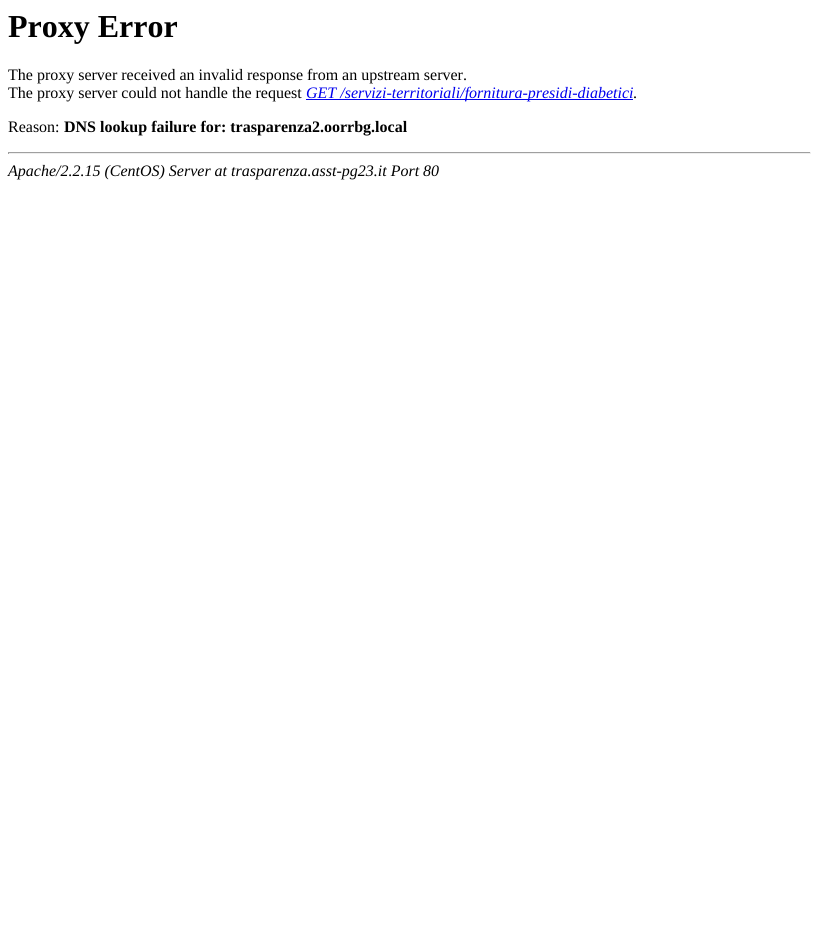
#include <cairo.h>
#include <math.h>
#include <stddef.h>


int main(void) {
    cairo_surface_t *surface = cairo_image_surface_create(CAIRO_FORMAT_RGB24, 819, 941);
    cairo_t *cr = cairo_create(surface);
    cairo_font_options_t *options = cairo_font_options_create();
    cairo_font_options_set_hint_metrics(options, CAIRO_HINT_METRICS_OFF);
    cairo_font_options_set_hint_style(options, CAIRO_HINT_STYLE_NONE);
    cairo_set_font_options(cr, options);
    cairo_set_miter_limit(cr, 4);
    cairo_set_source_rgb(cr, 1, 1, 1);
    cairo_paint(cr);
    cairo_select_font_face(cr, "Liberation Serif", CAIRO_FONT_SLANT_NORMAL, CAIRO_FONT_WEIGHT_BOLD);
    cairo_set_font_size(cr, 32);
    cairo_set_source_rgb(cr, 0, 0, 0);
    cairo_move_to(cr, 8, 37);
    cairo_show_text(cr, "Proxy Error");
    cairo_select_font_face(cr, "Liberation Serif", CAIRO_FONT_SLANT_NORMAL, CAIRO_FONT_WEIGHT_NORMAL);
    cairo_set_font_size(cr, 16);
    cairo_move_to(cr, 8, 80);
    cairo_show_text(cr, "The proxy server received an invalid response from an upstream server.");
    cairo_move_to(cr, 8, 98);
    cairo_show_text(cr, "The proxy server could not handle the request");
    cairo_set_source_rgb(cr, 0, 0, 0.933);
    cairo_rectangle(cr, 306, 99, 327, 1);
    cairo_fill(cr);
    cairo_select_font_face(cr, "Liberation Serif", CAIRO_FONT_SLANT_ITALIC, CAIRO_FONT_WEIGHT_NORMAL);
    cairo_move_to(cr, 306, 98);
    cairo_show_text(cr, "GET /servizi-territoriali/fornitura-presidi-diabetici");
    cairo_select_font_face(cr, "Liberation Serif", CAIRO_FONT_SLANT_NORMAL, CAIRO_FONT_WEIGHT_NORMAL);
    cairo_set_source_rgb(cr, 0, 0, 0);
    cairo_move_to(cr, 633, 98);
    cairo_show_text(cr, ".");
    cairo_move_to(cr, 8, 132);
    cairo_show_text(cr, "Reason:");
    cairo_select_font_face(cr, "Liberation Serif", CAIRO_FONT_SLANT_NORMAL, CAIRO_FONT_WEIGHT_BOLD);
    cairo_move_to(cr, 64, 132);
    cairo_show_text(cr, "DNS lookup failure for: trasparenza2.oorrbg.local");
    cairo_set_source_rgb(cr, 0.624, 0.624, 0.624);
    cairo_rectangle(cr, 8, 152, 803, 1);
    cairo_fill(cr);
    cairo_set_source_rgb(cr, 0.933, 0.933, 0.933);
    cairo_rectangle(cr, 810, 152, 1, 2);
    cairo_fill(cr);
    cairo_rectangle(cr, 8, 153, 803, 1);
    cairo_fill(cr);
    cairo_set_source_rgb(cr, 0.624, 0.624, 0.624);
    cairo_rectangle(cr, 8, 152, 1, 2);
    cairo_fill(cr);
    cairo_select_font_face(cr, "Liberation Serif", CAIRO_FONT_SLANT_ITALIC, CAIRO_FONT_WEIGHT_NORMAL);
    cairo_set_source_rgb(cr, 0, 0, 0);
    cairo_move_to(cr, 8, 176);
    cairo_show_text(cr, "Apache/2.2.15 (CentOS) Server at trasparenza.asst-pg23.it Port 80");
    cairo_surface_write_to_png(surface, "page.png");
    cairo_font_options_destroy(options);
    cairo_destroy(cr);
    cairo_surface_destroy(surface);
    return 0;
}
